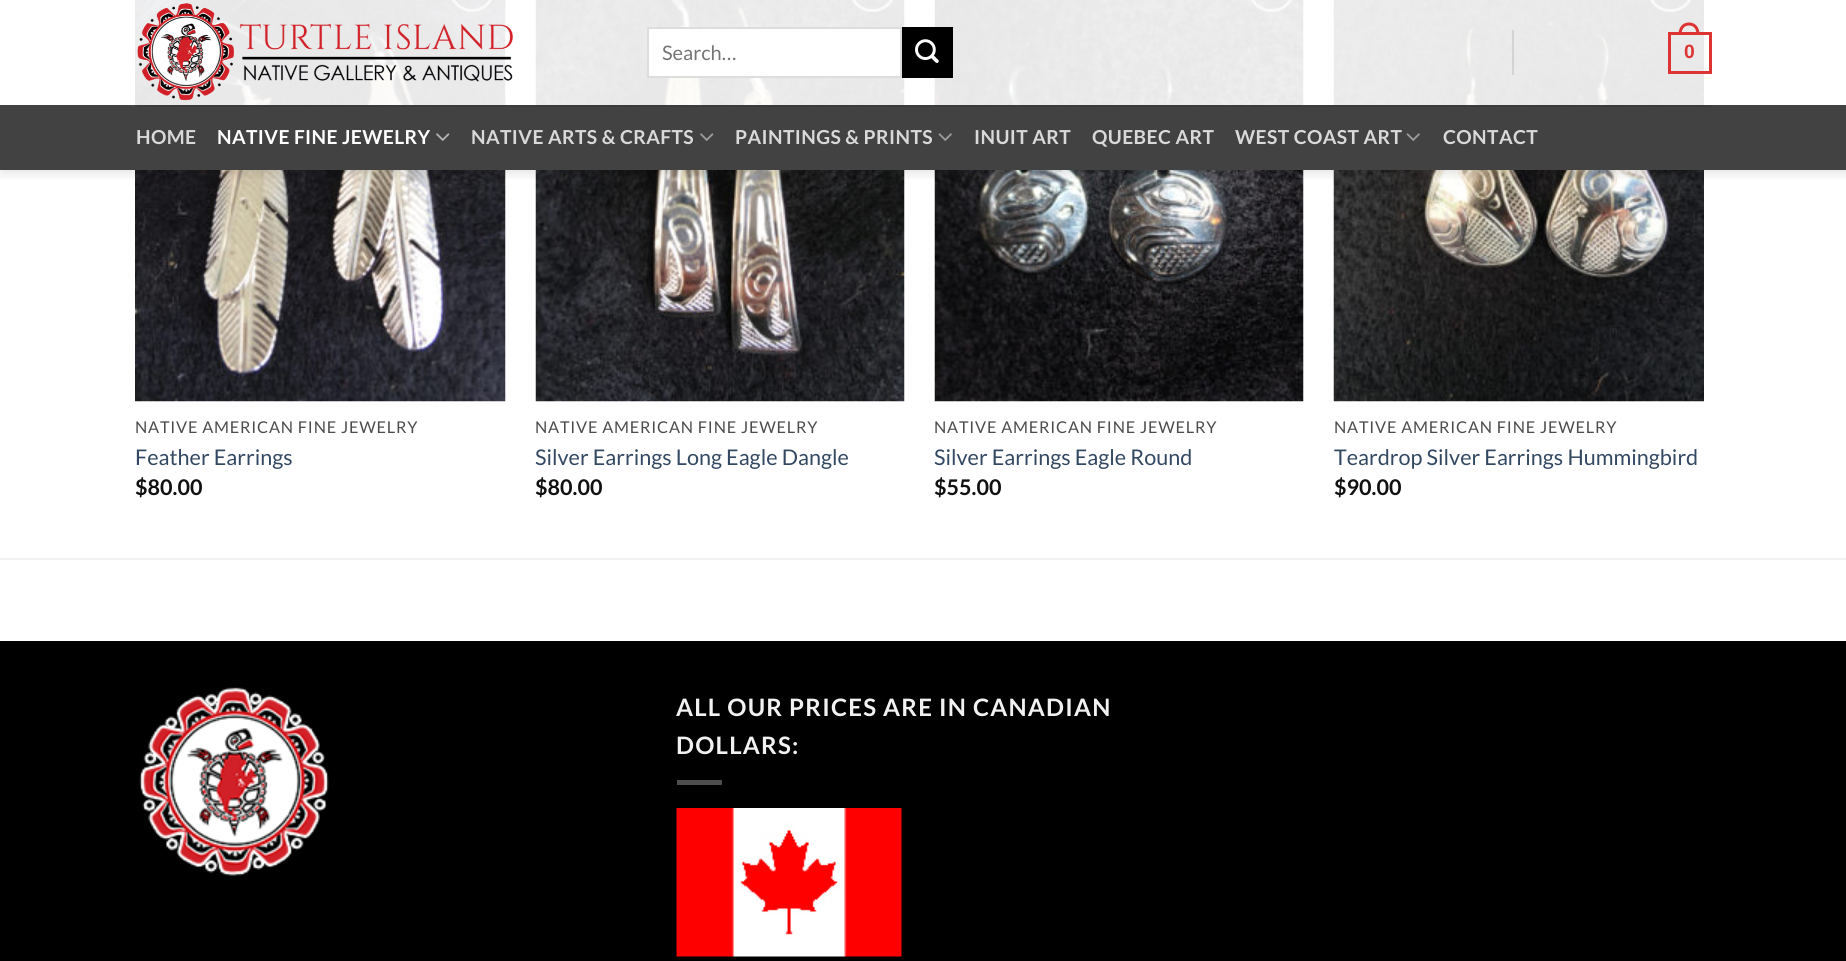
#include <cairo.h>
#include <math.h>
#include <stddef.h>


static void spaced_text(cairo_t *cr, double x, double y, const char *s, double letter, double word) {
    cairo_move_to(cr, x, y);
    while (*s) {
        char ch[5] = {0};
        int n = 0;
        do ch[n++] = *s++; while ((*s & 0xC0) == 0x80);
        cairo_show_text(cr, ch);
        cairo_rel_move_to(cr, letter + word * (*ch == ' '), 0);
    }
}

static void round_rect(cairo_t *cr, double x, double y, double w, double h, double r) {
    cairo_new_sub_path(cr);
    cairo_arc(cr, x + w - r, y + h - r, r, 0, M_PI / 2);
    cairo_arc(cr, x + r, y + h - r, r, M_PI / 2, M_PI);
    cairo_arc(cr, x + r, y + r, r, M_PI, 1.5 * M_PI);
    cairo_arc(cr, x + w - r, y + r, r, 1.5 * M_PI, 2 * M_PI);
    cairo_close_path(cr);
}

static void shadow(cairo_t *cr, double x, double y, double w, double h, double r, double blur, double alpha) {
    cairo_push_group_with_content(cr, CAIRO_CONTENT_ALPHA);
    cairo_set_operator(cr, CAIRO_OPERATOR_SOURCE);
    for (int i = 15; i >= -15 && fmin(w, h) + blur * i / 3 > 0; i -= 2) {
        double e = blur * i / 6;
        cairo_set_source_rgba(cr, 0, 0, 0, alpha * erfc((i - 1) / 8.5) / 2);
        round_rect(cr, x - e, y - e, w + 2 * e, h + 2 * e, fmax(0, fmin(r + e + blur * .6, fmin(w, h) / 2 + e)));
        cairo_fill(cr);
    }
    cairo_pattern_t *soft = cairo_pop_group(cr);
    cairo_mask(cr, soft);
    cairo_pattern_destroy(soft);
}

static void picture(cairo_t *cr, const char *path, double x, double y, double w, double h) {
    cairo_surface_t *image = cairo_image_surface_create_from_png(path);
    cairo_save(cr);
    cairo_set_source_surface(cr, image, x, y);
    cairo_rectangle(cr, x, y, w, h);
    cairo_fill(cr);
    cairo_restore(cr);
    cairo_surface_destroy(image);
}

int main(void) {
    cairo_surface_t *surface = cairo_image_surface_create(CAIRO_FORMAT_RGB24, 1846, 961);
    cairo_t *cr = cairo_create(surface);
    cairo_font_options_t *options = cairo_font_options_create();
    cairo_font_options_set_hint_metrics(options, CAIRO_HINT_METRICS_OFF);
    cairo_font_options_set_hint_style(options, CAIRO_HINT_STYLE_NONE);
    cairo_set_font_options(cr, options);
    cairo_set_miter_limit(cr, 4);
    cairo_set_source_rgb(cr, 1, 1, 1);
    cairo_paint(cr);
    picture(cr, "img6.png", 135, 0, 371, 402);
    round_rect(cr, 450.5, -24.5, 43, 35, 21.5);
    cairo_set_source_rgb(cr, 0.753, 0.753, 0.753);
    cairo_set_line_width(cr, 3);
    cairo_stroke(cr);
    picture(cr, "img7.png", 535, 0, 370, 402);
    round_rect(cr, 850.5, -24.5, 44, 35, 21.5);
    cairo_stroke(cr);
    picture(cr, "img8.png", 934, 0, 370, 402);
    round_rect(cr, 1249.5, -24.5, 44, 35, 21.5);
    cairo_stroke(cr);
    picture(cr, "img9.png", 1333, 0, 371, 402);
    round_rect(cr, 1648.5, -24.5, 44, 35, 21.5);
    cairo_stroke(cr);
    cairo_save(cr);
    cairo_rectangle(cr, 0, 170, 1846, 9);
    cairo_clip(cr);
    cairo_set_source_rgb(cr, 0, 0, 0);
    shadow(cr, 2, 2, 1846, 169, 0, 7.5, 0.15);
    cairo_restore(cr);
    cairo_set_source_rgba(cr, 1, 1, 1, 0.9);
    cairo_rectangle(cr, 135, 0, 1569, 105);
    cairo_fill(cr);
    picture(cr, "img1.png", 137, 3, 376, 98);
    cairo_set_source_rgb(cr, 1, 1, 1);
    cairo_rectangle(cr, 648, 28, 253, 49);
    cairo_fill_preserve(cr);
    cairo_set_source_rgb(cr, 0.867, 0.867, 0.867);
    cairo_set_line_width(cr, 2);
    cairo_stroke(cr);
    cairo_select_font_face(cr, "Lato", CAIRO_FONT_SLANT_NORMAL, CAIRO_FONT_WEIGHT_NORMAL);
    cairo_set_font_size(cr, 20);
    cairo_set_source_rgb(cr, 0.459, 0.459, 0.459);
    cairo_move_to(cr, 662, 60);
    cairo_show_text(cr, "Search…");
    cairo_set_source_rgb(cr, 0, 0, 0);
    cairo_rectangle(cr, 902, 27, 51, 51);
    cairo_fill(cr);
    picture(cr, "img2.png", 915, 39, 24, 24);
    cairo_set_source_rgba(cr, 0, 0, 0, 0.1);
    cairo_rectangle(cr, 1512, 30, 2, 45);
    cairo_fill(cr);
    cairo_rectangle(cr, 1669.5, 33.5, 41, 39);
    cairo_set_source_rgb(cr, 0.867, 0.2, 0.2);
    cairo_set_line_width(cr, 3);
    cairo_stroke(cr);
    cairo_set_fill_rule(cr, CAIRO_FILL_RULE_EVEN_ODD);
    cairo_new_path(cr);
    cairo_move_to(cr, 1689, 22.5);
    cairo_curve_to(cr, 1696, 22.5, 1699.5, 28, 1699.5, 34.5);
    cairo_line_to(cr, 1678.5, 34.5);
    cairo_curve_to(cr, 1678.5, 28, 1682, 22.5, 1689, 22.5);
    cairo_close_path(cr);
    cairo_move_to(cr, 1689, 25.5);
    cairo_curve_to(cr, 1694.5, 25.5, 1696.5, 30, 1696.5, 34.5);
    cairo_line_to(cr, 1681.5, 34.5);
    cairo_curve_to(cr, 1681.5, 30, 1683.5, 25.5, 1689, 25.5);
    cairo_close_path(cr);
    cairo_fill(cr);
    cairo_select_font_face(cr, "Liberation Sans", CAIRO_FONT_SLANT_NORMAL, CAIRO_FONT_WEIGHT_BOLD);
    cairo_set_font_size(cr, 19.25);
    spaced_text(cr, 1684, 58, "0", 0.4, 0);
    cairo_set_source_rgb(cr, 0.259, 0.259, 0.259);
    cairo_rectangle(cr, 0, 105, 1846, 65);
    cairo_fill(cr);
    cairo_set_source_rgb(cr, 0.231, 0.231, 0.231);
    cairo_rectangle(cr, 137, 105, 1575, 2);
    cairo_fill(cr);
    cairo_select_font_face(cr, "Lato", CAIRO_FONT_SLANT_NORMAL, CAIRO_FONT_WEIGHT_BOLD);
    cairo_set_source_rgb(cr, 0.851, 0.851, 0.851);
    spaced_text(cr, 136, 144, "HOME", 0.4, 0);
    cairo_set_source_rgb(cr, 1, 1, 1);
    spaced_text(cr, 217, 144, "NATIVE FINE JEWELRY", 0.4, 0);
    picture(cr, "img3.png", 436, 133, 14, 8);
    cairo_set_source_rgb(cr, 0.851, 0.851, 0.851);
    spaced_text(cr, 471, 144, "NATIVE ARTS & CRAFTS", 0.4, 0);
    picture(cr, "img4.png", 700, 133, 14, 8);
    spaced_text(cr, 735, 144, "PAINTINGS & PRINTS", 0.4, 0);
    picture(cr, "img5.png", 938, 133, 14, 8);
    spaced_text(cr, 974, 144, "INUIT ART", 0.4, 0);
    spaced_text(cr, 1092, 144, "QUEBEC ART", 0.4, 0);
    spaced_text(cr, 1235, 144, "WEST COAST ART", 0.4, 0);
    picture(cr, "img5.png", 1406, 133, 14, 8);
    spaced_text(cr, 1443, 144, "CONTACT", 0.4, 0);
    cairo_select_font_face(cr, "Lato", CAIRO_FONT_SLANT_NORMAL, CAIRO_FONT_WEIGHT_NORMAL);
    cairo_set_font_size(cr, 16.25);
    cairo_set_source_rgb(cr, 0.302, 0.302, 0.302);
    spaced_text(cr, 135, 433, "NATIVE AMERICAN FINE JEWELRY", 0.8, 0);
    cairo_set_font_size(cr, 21.6);
    cairo_set_source_rgb(cr, 0.2, 0.282, 0.384);
    cairo_move_to(cr, 135, 465);
    cairo_show_text(cr, "Feather Earrings");
    cairo_select_font_face(cr, "Lato", CAIRO_FONT_SLANT_NORMAL, CAIRO_FONT_WEIGHT_BOLD);
    cairo_set_source_rgb(cr, 0.067, 0.067, 0.067);
    cairo_move_to(cr, 135, 495);
    cairo_show_text(cr, "$80.00");
    cairo_select_font_face(cr, "Lato", CAIRO_FONT_SLANT_NORMAL, CAIRO_FONT_WEIGHT_NORMAL);
    cairo_set_font_size(cr, 16.25);
    cairo_set_source_rgb(cr, 0.302, 0.302, 0.302);
    spaced_text(cr, 535, 433, "NATIVE AMERICAN FINE JEWELRY", 0.8, 0);
    cairo_set_font_size(cr, 21.6);
    cairo_set_source_rgb(cr, 0.2, 0.282, 0.384);
    cairo_move_to(cr, 535, 465);
    cairo_show_text(cr, "Silver Earrings Long Eagle Dangle");
    cairo_select_font_face(cr, "Lato", CAIRO_FONT_SLANT_NORMAL, CAIRO_FONT_WEIGHT_BOLD);
    cairo_set_source_rgb(cr, 0.067, 0.067, 0.067);
    cairo_move_to(cr, 535, 495);
    cairo_show_text(cr, "$80.00");
    cairo_select_font_face(cr, "Lato", CAIRO_FONT_SLANT_NORMAL, CAIRO_FONT_WEIGHT_NORMAL);
    cairo_set_font_size(cr, 16.25);
    cairo_set_source_rgb(cr, 0.302, 0.302, 0.302);
    spaced_text(cr, 934, 433, "NATIVE AMERICAN FINE JEWELRY", 0.8, 0);
    cairo_set_font_size(cr, 21.6);
    cairo_set_source_rgb(cr, 0.2, 0.282, 0.384);
    cairo_move_to(cr, 934, 465);
    cairo_show_text(cr, "Silver Earrings Eagle Round");
    cairo_select_font_face(cr, "Lato", CAIRO_FONT_SLANT_NORMAL, CAIRO_FONT_WEIGHT_BOLD);
    cairo_set_source_rgb(cr, 0.067, 0.067, 0.067);
    cairo_move_to(cr, 934, 495);
    cairo_show_text(cr, "$55.00");
    cairo_select_font_face(cr, "Lato", CAIRO_FONT_SLANT_NORMAL, CAIRO_FONT_WEIGHT_NORMAL);
    cairo_set_font_size(cr, 16.25);
    cairo_set_source_rgb(cr, 0.302, 0.302, 0.302);
    spaced_text(cr, 1334, 433, "NATIVE AMERICAN FINE JEWELRY", 0.8, 0);
    cairo_set_font_size(cr, 21.6);
    cairo_set_source_rgb(cr, 0.2, 0.282, 0.384);
    cairo_move_to(cr, 1334, 465);
    cairo_show_text(cr, "Teardrop Silver Earrings Hummingbird");
    cairo_select_font_face(cr, "Lato", CAIRO_FONT_SLANT_NORMAL, CAIRO_FONT_WEIGHT_BOLD);
    cairo_set_source_rgb(cr, 0.067, 0.067, 0.067);
    cairo_move_to(cr, 1334, 495);
    cairo_show_text(cr, "$90.00");
    cairo_set_source_rgb(cr, 0.949, 0.949, 0.949);
    cairo_rectangle(cr, 0, 558, 1846, 2);
    cairo_fill(cr);
    cairo_set_source_rgb(cr, 0, 0, 0);
    cairo_rectangle(cr, 0, 641, 1846, 320);
    cairo_fill(cr);
    picture(cr, "img10.png", 139, 687, 190, 189);
    cairo_set_font_size(cr, 24);
    cairo_set_source_rgb(cr, 0.945, 0.945, 0.945);
    spaced_text(cr, 676, 716, "ALL OUR PRICES ARE IN CANADIAN", 1.2, 0);
    spaced_text(cr, 676, 754, "DOLLARS:", 1.2, 0);
    cairo_set_source_rgb(cr, 0.302, 0.302, 0.302);
    cairo_rectangle(cr, 677, 780, 45, 5);
    cairo_fill(cr);
    picture(cr, "img11.png", 676, 808, 226, 149);
    cairo_surface_write_to_png(surface, "page.png");
    cairo_font_options_destroy(options);
    cairo_destroy(cr);
    cairo_surface_destroy(surface);
    return 0;
}
